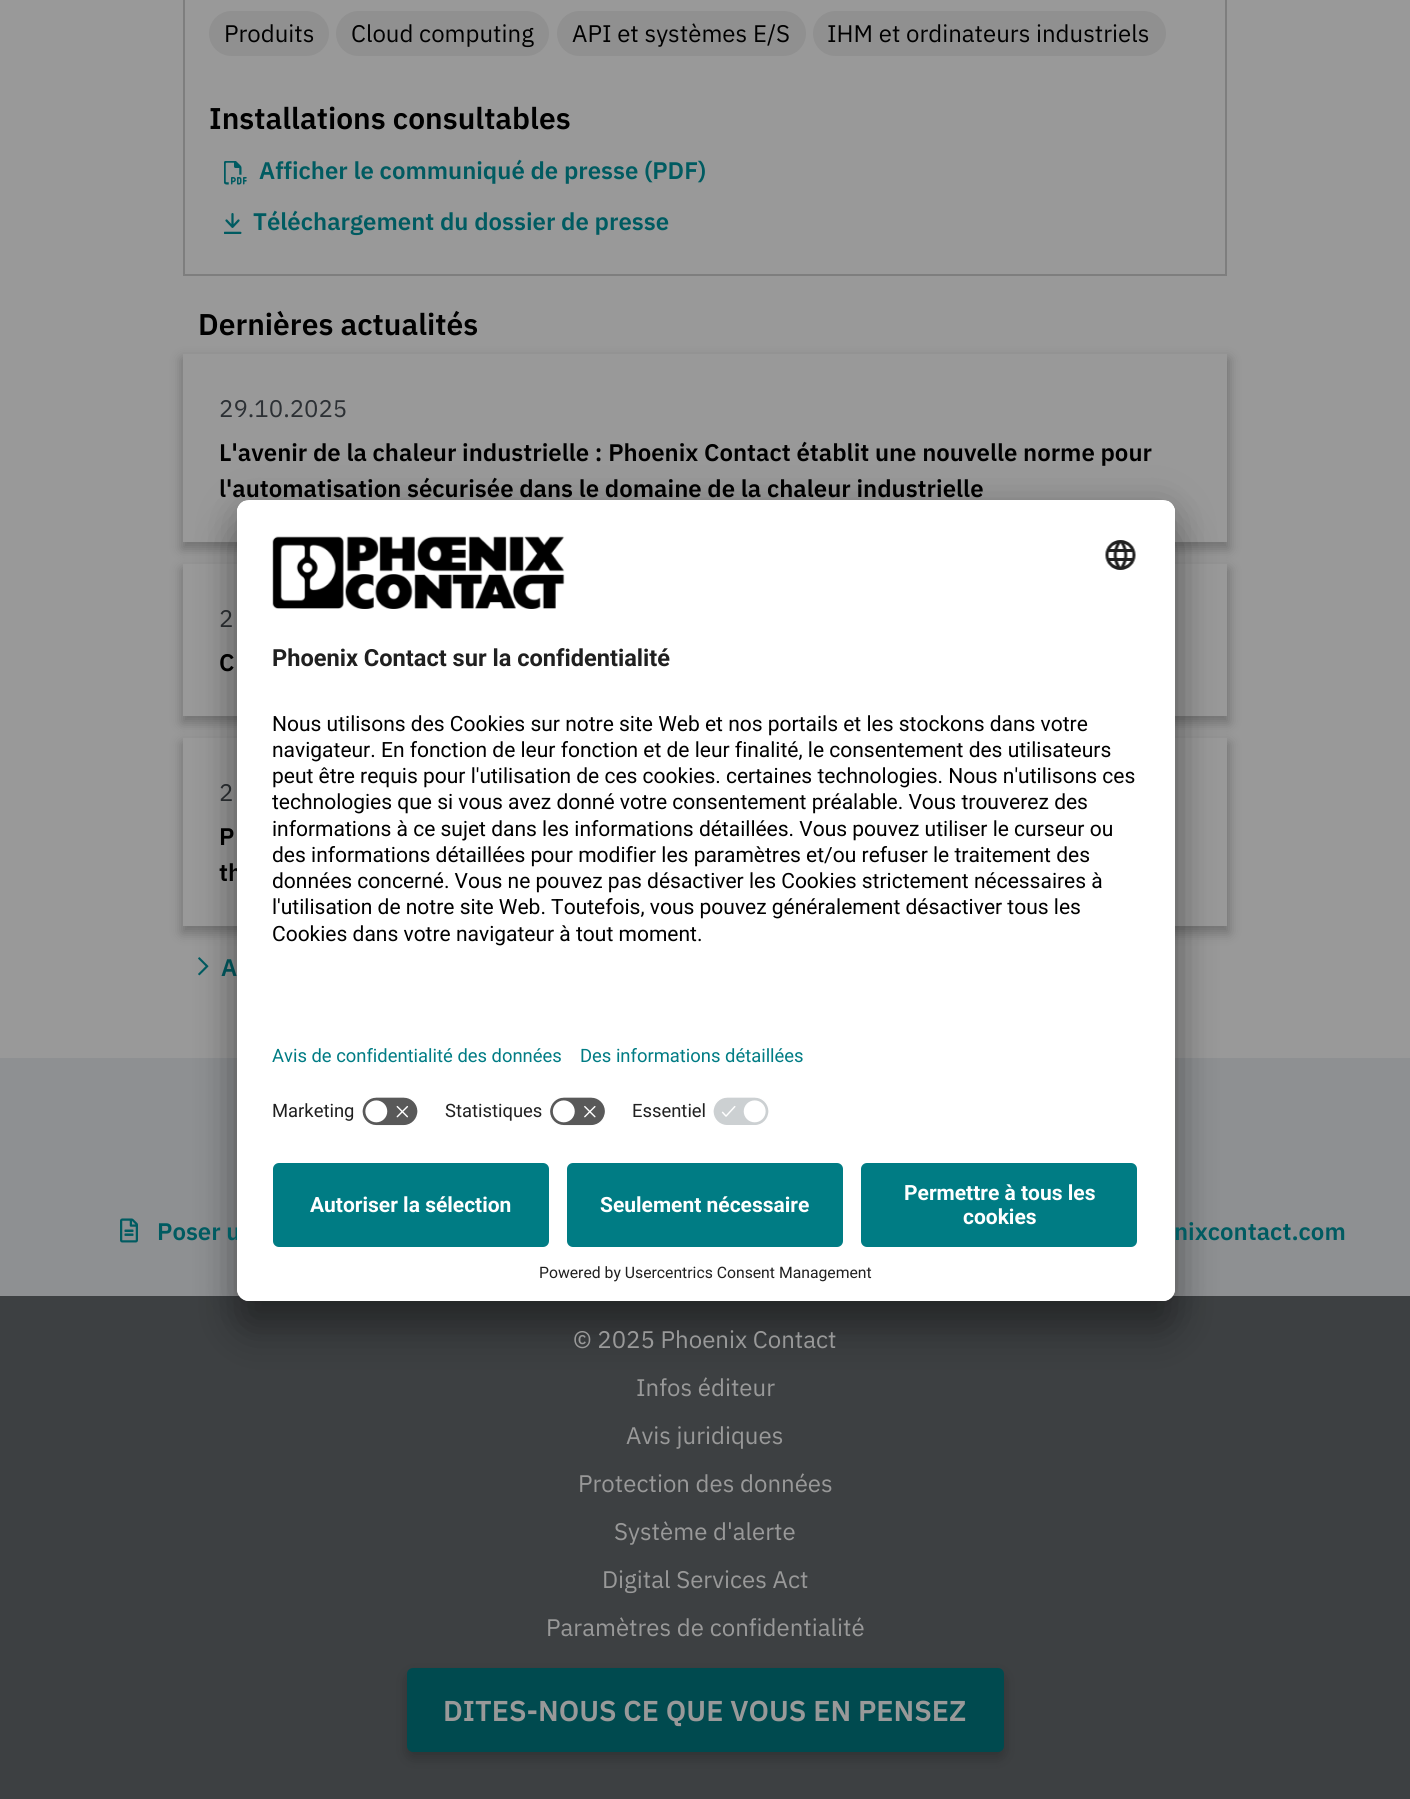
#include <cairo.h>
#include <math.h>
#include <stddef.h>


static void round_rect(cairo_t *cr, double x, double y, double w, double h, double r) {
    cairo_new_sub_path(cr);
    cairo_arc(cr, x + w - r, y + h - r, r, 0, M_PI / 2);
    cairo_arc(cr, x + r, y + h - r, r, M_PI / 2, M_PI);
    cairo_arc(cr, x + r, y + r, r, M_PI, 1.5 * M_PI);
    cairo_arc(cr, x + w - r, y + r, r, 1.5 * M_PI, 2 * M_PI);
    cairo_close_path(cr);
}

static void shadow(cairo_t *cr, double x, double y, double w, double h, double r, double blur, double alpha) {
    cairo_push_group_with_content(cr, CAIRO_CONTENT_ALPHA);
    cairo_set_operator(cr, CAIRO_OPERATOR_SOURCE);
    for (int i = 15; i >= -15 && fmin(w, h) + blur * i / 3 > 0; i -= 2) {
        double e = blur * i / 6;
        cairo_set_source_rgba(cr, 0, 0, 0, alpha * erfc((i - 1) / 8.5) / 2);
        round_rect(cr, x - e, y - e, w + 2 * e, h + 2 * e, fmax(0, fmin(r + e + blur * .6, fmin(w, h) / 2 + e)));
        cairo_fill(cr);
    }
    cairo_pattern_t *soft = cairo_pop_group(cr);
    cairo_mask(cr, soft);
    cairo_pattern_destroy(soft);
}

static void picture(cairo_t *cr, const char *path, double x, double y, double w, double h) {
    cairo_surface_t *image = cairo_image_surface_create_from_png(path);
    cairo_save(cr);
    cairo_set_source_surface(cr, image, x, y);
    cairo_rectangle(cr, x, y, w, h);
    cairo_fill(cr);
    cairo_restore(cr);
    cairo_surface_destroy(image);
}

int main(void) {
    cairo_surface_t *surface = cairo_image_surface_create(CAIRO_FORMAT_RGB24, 1410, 1799);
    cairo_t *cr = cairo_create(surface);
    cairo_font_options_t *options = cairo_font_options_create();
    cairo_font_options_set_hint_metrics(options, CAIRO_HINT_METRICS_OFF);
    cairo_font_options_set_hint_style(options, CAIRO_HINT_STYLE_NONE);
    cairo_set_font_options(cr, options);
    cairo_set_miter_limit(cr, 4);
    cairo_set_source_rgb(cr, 0.6, 0.6, 0.6);
    cairo_paint(cr);
    cairo_rectangle(cr, 184, -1, 1042, 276);
    cairo_set_source_rgb(cr, 0.494, 0.494, 0.494);
    cairo_stroke(cr);
    cairo_set_source_rgb(cr, 0.565, 0.565, 0.565);
    round_rect(cr, 209, 11, 120, 45, 22.5);
    cairo_fill(cr);
    cairo_select_font_face(cr, "IBM Plex Sans", CAIRO_FONT_SLANT_NORMAL, CAIRO_FONT_WEIGHT_NORMAL);
    cairo_set_font_size(cr, 24);
    cairo_set_source_rgb(cr, 0, 0, 0);
    cairo_move_to(cr, 224, 42);
    cairo_show_text(cr, "Produits");
    cairo_set_source_rgb(cr, 0.565, 0.565, 0.565);
    round_rect(cr, 336, 11, 213, 45, 22.5);
    cairo_fill(cr);
    cairo_set_source_rgb(cr, 0, 0, 0);
    cairo_move_to(cr, 351, 42);
    cairo_show_text(cr, "Cloud computing");
    cairo_set_source_rgb(cr, 0.565, 0.565, 0.565);
    round_rect(cr, 557, 11, 249, 45, 22.5);
    cairo_fill(cr);
    cairo_set_source_rgb(cr, 0, 0, 0);
    cairo_move_to(cr, 572, 42);
    cairo_show_text(cr, "API et systèmes E/S");
    cairo_set_source_rgb(cr, 0.565, 0.565, 0.565);
    round_rect(cr, 813, 11, 353, 45, 22.5);
    cairo_fill(cr);
    cairo_set_source_rgb(cr, 0, 0, 0);
    cairo_move_to(cr, 827, 42);
    cairo_show_text(cr, "IHM et ordinateurs industriels");
    cairo_select_font_face(cr, "IBM Plex Sans SemiBold", CAIRO_FONT_SLANT_NORMAL, CAIRO_FONT_WEIGHT_NORMAL);
    cairo_set_font_size(cr, 30);
    cairo_move_to(cr, 209, 129);
    cairo_show_text(cr, "Installations consultables");
    picture(cr, "img1.png", 224, 161, 23, 24);
    cairo_set_font_size(cr, 24);
    cairo_set_source_rgb(cr, 0, 0.357, 0.38);
    cairo_move_to(cr, 259, 179);
    cairo_show_text(cr, "Afficher le communiqué de presse (PDF)");
    picture(cr, "img2.png", 224, 213, 18, 21);
    cairo_move_to(cr, 253, 230);
    cairo_show_text(cr, "Téléchargement du dossier de presse");
    cairo_set_font_size(cr, 30);
    cairo_set_source_rgb(cr, 0, 0, 0);
    cairo_move_to(cr, 198, 335);
    cairo_show_text(cr, "Dernières actualités");
    cairo_set_source_rgb(cr, 0.075, 0.075, 0.075);
    shadow(cr, 182, 359, 1047, 190, 0, 6, 0.3);
    cairo_set_source_rgb(cr, 0.6, 0.6, 0.6);
    cairo_rectangle(cr, 183, 354, 1044, 188);
    cairo_fill(cr);
    cairo_select_font_face(cr, "IBM Plex Sans", CAIRO_FONT_SLANT_NORMAL, CAIRO_FONT_WEIGHT_NORMAL);
    cairo_set_font_size(cr, 24);
    cairo_set_source_rgb(cr, 0.173, 0.188, 0.204);
    cairo_move_to(cr, 219, 417);
    cairo_show_text(cr, "29.10.2025");
    cairo_select_font_face(cr, "IBM Plex Sans SemiBold", CAIRO_FONT_SLANT_NORMAL, CAIRO_FONT_WEIGHT_NORMAL);
    cairo_set_source_rgb(cr, 0, 0, 0);
    cairo_move_to(cr, 219, 461);
    cairo_show_text(cr, "L'avenir de la chaleur industrielle : Phoenix Contact établit une nouvelle norme pour");
    cairo_move_to(cr, 219, 497);
    cairo_show_text(cr, "l'automatisation sécurisée dans le domaine de la chaleur industrielle");
    cairo_set_source_rgb(cr, 0.075, 0.075, 0.075);
    shadow(cr, 182, 569, 1047, 154, 0, 6, 0.3);
    cairo_set_source_rgb(cr, 0.6, 0.6, 0.6);
    cairo_rectangle(cr, 183, 564, 1044, 152);
    cairo_fill(cr);
    cairo_select_font_face(cr, "IBM Plex Sans", CAIRO_FONT_SLANT_NORMAL, CAIRO_FONT_WEIGHT_NORMAL);
    cairo_set_source_rgb(cr, 0.173, 0.188, 0.204);
    cairo_move_to(cr, 219, 627);
    cairo_show_text(cr, "2");
    cairo_select_font_face(cr, "IBM Plex Sans SemiBold", CAIRO_FONT_SLANT_NORMAL, CAIRO_FONT_WEIGHT_NORMAL);
    cairo_set_source_rgb(cr, 0, 0, 0);
    cairo_move_to(cr, 219, 671);
    cairo_show_text(cr, "C");
    cairo_set_source_rgb(cr, 0.075, 0.075, 0.075);
    shadow(cr, 182, 743, 1047, 190, 0, 6, 0.3);
    cairo_set_source_rgb(cr, 0.6, 0.6, 0.6);
    cairo_rectangle(cr, 183, 738, 1044, 188);
    cairo_fill(cr);
    cairo_select_font_face(cr, "IBM Plex Sans", CAIRO_FONT_SLANT_NORMAL, CAIRO_FONT_WEIGHT_NORMAL);
    cairo_set_source_rgb(cr, 0.173, 0.188, 0.204);
    cairo_move_to(cr, 219, 801);
    cairo_show_text(cr, "2");
    cairo_select_font_face(cr, "IBM Plex Sans SemiBold", CAIRO_FONT_SLANT_NORMAL, CAIRO_FONT_WEIGHT_NORMAL);
    cairo_set_source_rgb(cr, 0, 0, 0);
    cairo_move_to(cr, 219, 845);
    cairo_show_text(cr, "P");
    cairo_move_to(cr, 219, 881);
    cairo_show_text(cr, "th");
    picture(cr, "img3.png", 198, 957, 11, 19);
    cairo_set_source_rgb(cr, 0, 0.357, 0.38);
    cairo_move_to(cr, 221, 976);
    cairo_show_text(cr, "A");
    cairo_set_source_rgb(cr, 0.557, 0.565, 0.573);
    cairo_rectangle(cr, 0, 1058, 1410, 238);
    cairo_fill(cr);
    cairo_set_source_rgb(cr, 0.239, 0.251, 0.259);
    cairo_rectangle(cr, 0, 1296, 1410, 503);
    cairo_fill(cr);
    cairo_set_source_rgb(cr, 0, 0, 0);
    shadow(cr, 237, 530, 938, 801, 12, 21, 0.3);
    shadow(cr, 237, 507, 938, 801, 12, 19.5, 0.22);
    cairo_set_source_rgb(cr, 0, 0.357, 0.38);
    cairo_move_to(cr, 157, 1240);
    cairo_show_text(cr, "Poser u");
    cairo_set_source_rgb(cr, 1, 1, 1);
    round_rect(cr, 237, 500, 938, 801, 12);
    cairo_fill(cr);
    cairo_save(cr);
    round_rect(cr, 237, 500, 938, 801, 12);
    cairo_clip(cr);
    cairo_new_path(cr);
    cairo_move_to(cr, 249, 500);
    cairo_line_to(cr, 1163, 500);
    cairo_curve_to(cr, 1169.5, 500, 1175, 505.5, 1175, 512);
    cairo_line_to(cr, 1175, 1151);
    cairo_line_to(cr, 237, 1151);
    cairo_line_to(cr, 237, 512);
    cairo_curve_to(cr, 237, 505.5, 242.5, 500, 249, 500);
    cairo_close_path(cr);
    cairo_clip(cr);
    cairo_rectangle(cr, 237, 501, 938, 650);
    cairo_fill(cr);
    cairo_rectangle(cr, 237, 501, 938, 590);
    cairo_fill(cr);
    cairo_restore(cr);
    picture(cr, "img4.png", 272, 536, 293, 73);
    picture(cr, "img5.png", 1105, 540, 31, 30);
    cairo_select_font_face(cr, "Roboto", CAIRO_FONT_SLANT_NORMAL, CAIRO_FONT_WEIGHT_BOLD);
    cairo_set_font_size(cr, 23.6);
    cairo_set_source_rgb(cr, 0.125, 0.125, 0.125);
    cairo_move_to(cr, 272, 666);
    cairo_show_text(cr, "Phoenix Contact sur la confidentialité");
    cairo_select_font_face(cr, "Roboto", CAIRO_FONT_SLANT_NORMAL, CAIRO_FONT_WEIGHT_NORMAL);
    cairo_set_font_size(cr, 21);
    cairo_set_source_rgb(cr, 0, 0, 0);
    cairo_move_to(cr, 272, 731);
    cairo_show_text(cr, "Nous utilisons des Cookies sur notre site Web et nos portails et les stockons dans votre");
    cairo_move_to(cr, 272, 757);
    cairo_show_text(cr, "navigateur. En fonction de leur fonction et de leur finalité, le consentement des utilisateurs");
    cairo_move_to(cr, 272, 783);
    cairo_show_text(cr, "peut être requis pour l'utilisation de ces cookies. certaines technologies. Nous n'utilisons ces");
    cairo_move_to(cr, 272, 809);
    cairo_show_text(cr, "technologies que si vous avez donné votre consentement préalable. Vous trouverez des");
    cairo_move_to(cr, 272, 836);
    cairo_show_text(cr, "informations à ce sujet dans les informations détaillées. Vous pouvez utiliser le curseur ou");
    cairo_move_to(cr, 272, 862);
    cairo_show_text(cr, "des informations détaillées pour modifier les paramètres et/ou refuser le traitement des");
    cairo_move_to(cr, 272, 888);
    cairo_show_text(cr, "données concerné. Vous ne pouvez pas désactiver les Cookies strictement nécessaires à");
    cairo_move_to(cr, 272, 914);
    cairo_show_text(cr, "l'utilisation de notre site Web. Toutefois, vous pouvez généralement désactiver tous les");
    cairo_move_to(cr, 272, 941);
    cairo_show_text(cr, "Cookies dans votre navigateur à tout moment.");
    cairo_set_font_size(cr, 18.4);
    cairo_set_source_rgb(cr, 0, 0.486, 0.518);
    cairo_move_to(cr, 272, 1062);
    cairo_show_text(cr, "Avis de confidentialité des données");
    cairo_move_to(cr, 580, 1062);
    cairo_show_text(cr, "Des informations détaillées");
    cairo_set_source_rgb(cr, 0.125, 0.125, 0.125);
    cairo_move_to(cr, 272, 1117);
    cairo_show_text(cr, "Marketing");
    picture(cr, "img6.png", 362, 1097, 56, 29);
    cairo_move_to(cr, 445, 1117);
    cairo_show_text(cr, "Statistiques");
    picture(cr, "img7.png", 550, 1097, 55, 29);
    cairo_move_to(cr, 632, 1117);
    cairo_show_text(cr, "Essentiel");
    picture(cr, "img8.png", 713, 1097, 56, 28);
    cairo_set_source_rgb(cr, 1, 1, 1);
    cairo_new_path(cr);
    cairo_move_to(cr, 237, 1151);
    cairo_line_to(cr, 1175, 1151);
    cairo_line_to(cr, 1175, 1289);
    cairo_curve_to(cr, 1175, 1295.5, 1169.5, 1301, 1163, 1301);
    cairo_line_to(cr, 249, 1301);
    cairo_curve_to(cr, 242.5, 1301, 237, 1295.5, 237, 1289);
    cairo_close_path(cr);
    cairo_fill(cr);
    cairo_set_source_rgb(cr, 0, 0.486, 0.518);
    round_rect(cr, 273, 1163, 276, 84, 6);
    cairo_fill(cr);
    cairo_select_font_face(cr, "Roboto", CAIRO_FONT_SLANT_NORMAL, CAIRO_FONT_WEIGHT_BOLD);
    cairo_set_font_size(cr, 21);
    cairo_set_source_rgb(cr, 1, 1, 1);
    cairo_move_to(cr, 310, 1212);
    cairo_show_text(cr, "Autoriser la sélection");
    cairo_set_source_rgb(cr, 0, 0.486, 0.518);
    round_rect(cr, 567, 1163, 276, 84, 6);
    cairo_fill(cr);
    cairo_set_source_rgb(cr, 1, 1, 1);
    cairo_move_to(cr, 600, 1212);
    cairo_show_text(cr, "Seulement nécessaire");
    cairo_set_source_rgb(cr, 0, 0.486, 0.518);
    round_rect(cr, 861, 1163, 276, 84, 6);
    cairo_fill(cr);
    cairo_set_source_rgb(cr, 1, 1, 1);
    cairo_move_to(cr, 904, 1200);
    cairo_show_text(cr, "Permettre à tous les");
    cairo_move_to(cr, 963, 1224);
    cairo_show_text(cr, "cookies");
    cairo_select_font_face(cr, "Roboto", CAIRO_FONT_SLANT_NORMAL, CAIRO_FONT_WEIGHT_NORMAL);
    cairo_set_font_size(cr, 15.75);
    cairo_set_source_rgb(cr, 0.125, 0.125, 0.125);
    cairo_move_to(cr, 539, 1278);
    cairo_show_text(cr, "Powered by Usercentrics Consent Management");
    picture(cr, "img9.png", 120, 1218, 18, 25);
    cairo_select_font_face(cr, "IBM Plex Sans SemiBold", CAIRO_FONT_SLANT_NORMAL, CAIRO_FONT_WEIGHT_NORMAL);
    cairo_set_font_size(cr, 24);
    cairo_set_source_rgb(cr, 0, 0.357, 0.38);
    cairo_move_to(cr, 1174, 1240);
    cairo_show_text(cr, "nixcontact.com");
    cairo_select_font_face(cr, "IBM Plex Sans", CAIRO_FONT_SLANT_NORMAL, CAIRO_FONT_WEIGHT_NORMAL);
    cairo_set_source_rgb(cr, 0.6, 0.6, 0.6);
    cairo_move_to(cr, 573, 1348);
    cairo_show_text(cr, "© 2025 Phoenix Contact");
    cairo_move_to(cr, 636, 1396);
    cairo_show_text(cr, "Infos éditeur");
    cairo_move_to(cr, 626, 1444);
    cairo_show_text(cr, "Avis juridiques");
    cairo_move_to(cr, 578, 1492);
    cairo_show_text(cr, "Protection des données");
    cairo_move_to(cr, 614, 1540);
    cairo_show_text(cr, "Système d'alerte");
    cairo_move_to(cr, 602, 1588);
    cairo_show_text(cr, "Digital Services Act");
    cairo_move_to(cr, 546, 1636);
    cairo_show_text(cr, "Paramètres de confidentialité");
    cairo_set_source_rgb(cr, 0.075, 0.075, 0.075);
    shadow(cr, 407, 1674, 597, 84, 6, 6, 0.3);
    cairo_set_source_rgb(cr, 0, 0.29, 0.31);
    round_rect(cr, 407, 1668, 597, 84, 6);
    cairo_fill(cr);
    cairo_select_font_face(cr, "IBM Plex Sans SemiBold", CAIRO_FONT_SLANT_NORMAL, CAIRO_FONT_WEIGHT_NORMAL);
    cairo_set_font_size(cr, 28.75);
    cairo_set_source_rgb(cr, 0.6, 0.6, 0.6);
    cairo_move_to(cr, 443, 1721);
    cairo_show_text(cr, "DITES-NOUS CE QUE VOUS EN PENSEZ");
    cairo_surface_write_to_png(surface, "page.png");
    cairo_font_options_destroy(options);
    cairo_destroy(cr);
    cairo_surface_destroy(surface);
    return 0;
}
